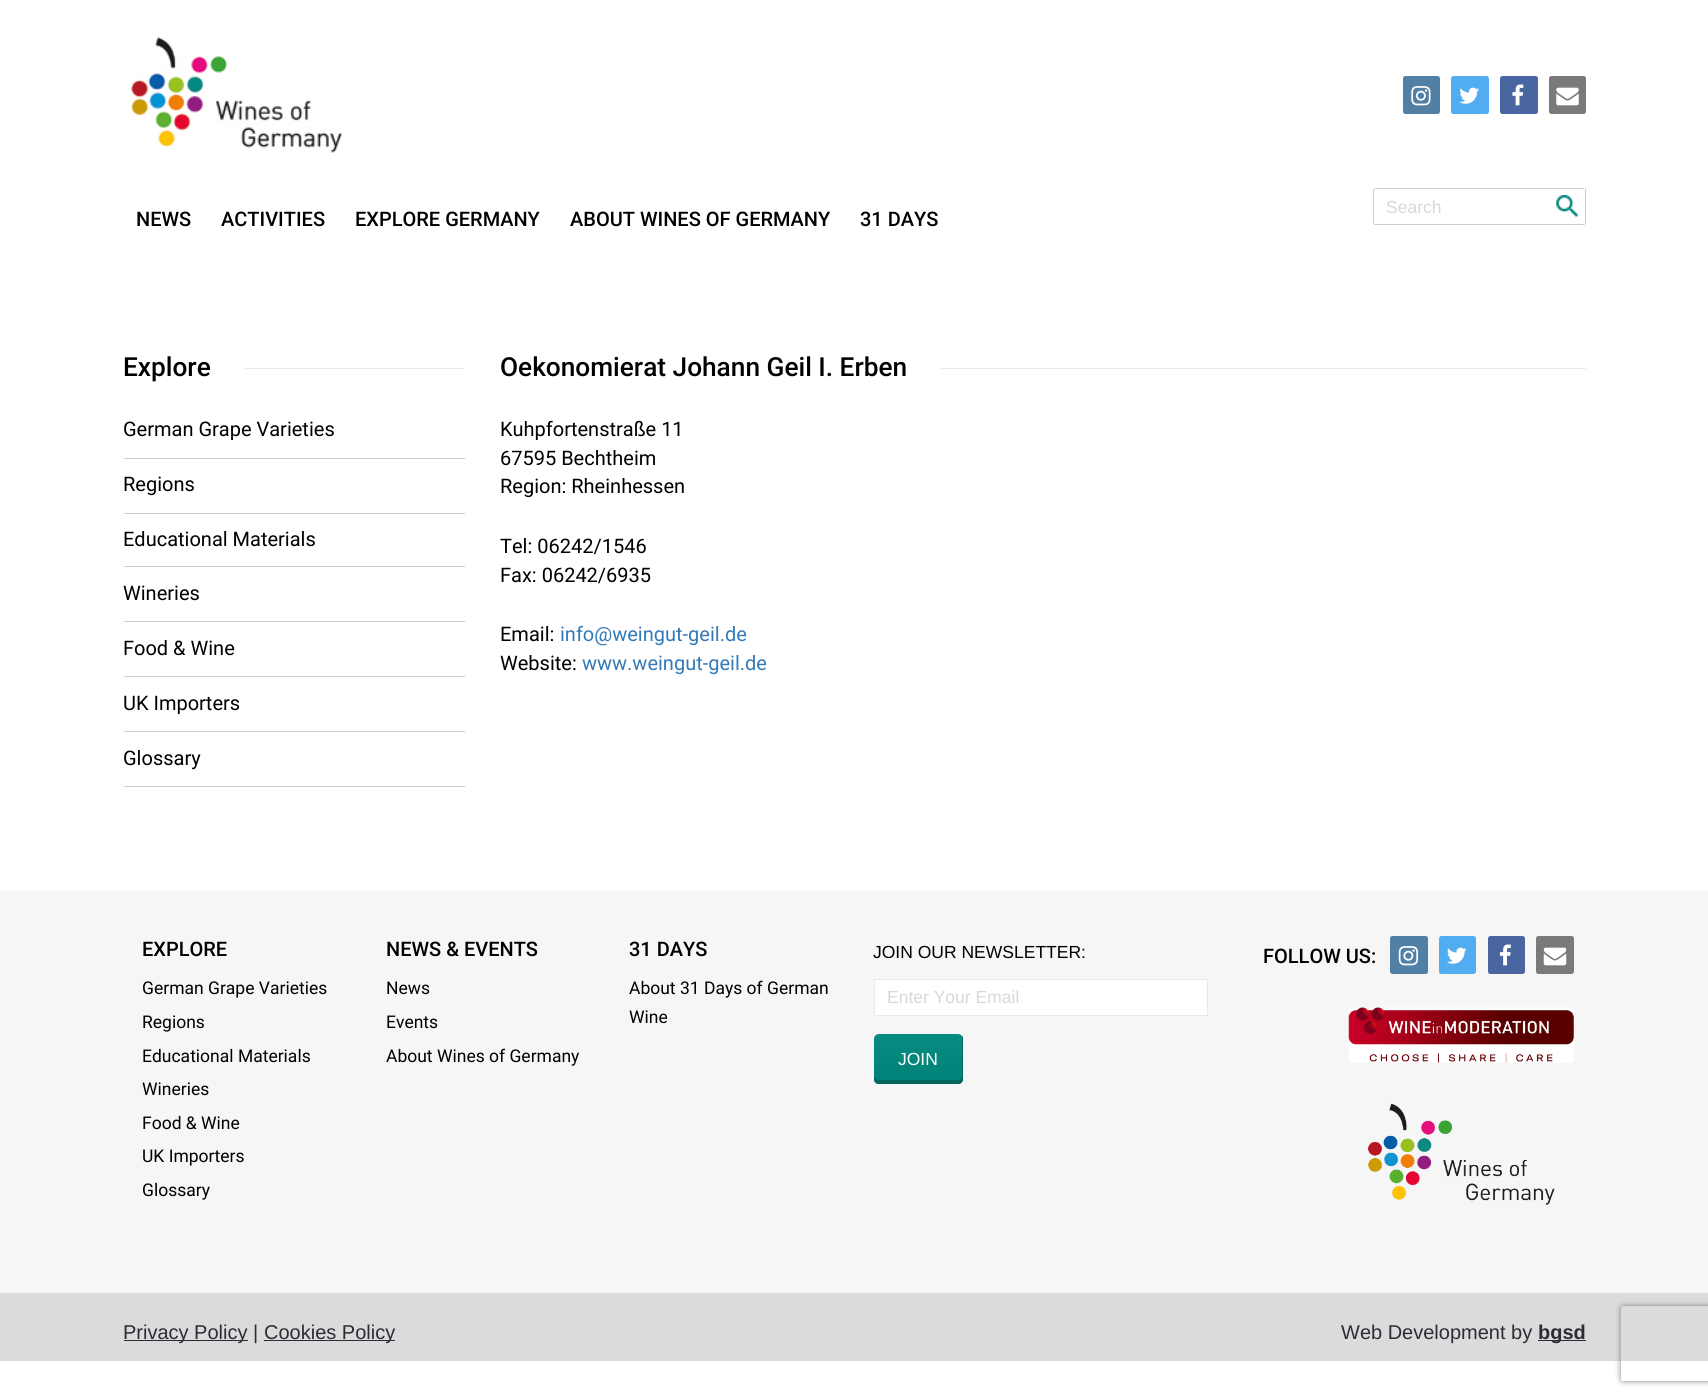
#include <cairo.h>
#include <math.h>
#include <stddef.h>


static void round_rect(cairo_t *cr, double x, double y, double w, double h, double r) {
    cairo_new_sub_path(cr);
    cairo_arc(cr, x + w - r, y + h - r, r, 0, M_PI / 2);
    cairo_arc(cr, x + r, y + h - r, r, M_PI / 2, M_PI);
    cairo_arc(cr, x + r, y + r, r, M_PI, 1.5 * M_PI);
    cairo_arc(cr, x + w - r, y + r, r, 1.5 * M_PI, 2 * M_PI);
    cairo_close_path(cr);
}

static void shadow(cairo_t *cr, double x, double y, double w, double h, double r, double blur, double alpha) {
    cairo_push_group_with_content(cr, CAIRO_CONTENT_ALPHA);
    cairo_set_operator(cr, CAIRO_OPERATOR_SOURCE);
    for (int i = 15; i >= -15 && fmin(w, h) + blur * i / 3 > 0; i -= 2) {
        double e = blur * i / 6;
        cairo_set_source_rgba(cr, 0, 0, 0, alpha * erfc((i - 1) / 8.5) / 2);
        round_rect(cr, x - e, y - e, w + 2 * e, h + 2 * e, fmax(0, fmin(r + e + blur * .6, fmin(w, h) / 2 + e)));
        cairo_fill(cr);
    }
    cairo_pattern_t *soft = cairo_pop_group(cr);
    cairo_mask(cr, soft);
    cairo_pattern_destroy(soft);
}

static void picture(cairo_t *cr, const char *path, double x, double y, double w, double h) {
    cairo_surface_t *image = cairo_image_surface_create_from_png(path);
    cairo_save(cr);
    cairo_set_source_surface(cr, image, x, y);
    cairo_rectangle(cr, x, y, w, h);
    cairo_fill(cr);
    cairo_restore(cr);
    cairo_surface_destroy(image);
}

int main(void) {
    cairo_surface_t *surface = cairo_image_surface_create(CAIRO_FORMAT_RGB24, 1708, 1398);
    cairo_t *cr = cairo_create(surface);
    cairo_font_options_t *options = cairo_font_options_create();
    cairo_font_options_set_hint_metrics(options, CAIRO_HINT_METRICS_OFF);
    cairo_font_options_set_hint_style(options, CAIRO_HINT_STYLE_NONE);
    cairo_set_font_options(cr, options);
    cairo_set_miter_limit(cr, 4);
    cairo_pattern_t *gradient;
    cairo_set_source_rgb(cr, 1, 1, 1);
    cairo_paint(cr);
    picture(cr, "img1.png", 131, 37, 211, 116);
    cairo_set_source_rgb(cr, 0.322, 0.502, 0.643);
    round_rect(cr, 1403, 76, 37, 38, 2.5);
    cairo_fill(cr);
    picture(cr, "img2.png", 1411, 86, 20, 20);
    cairo_set_source_rgb(cr, 0.322, 0.678, 0.941);
    round_rect(cr, 1451, 76, 38, 38, 2.5);
    cairo_fill(cr);
    picture(cr, "img3.png", 1459, 87, 20, 17);
    cairo_set_source_rgb(cr, 0.29, 0.4, 0.627);
    round_rect(cr, 1500, 76, 38, 38, 2.5);
    cairo_fill(cr);
    picture(cr, "img4.png", 1512, 84, 12, 22);
    cairo_set_source_rgb(cr, 0.482, 0.475, 0.482);
    round_rect(cr, 1549, 76, 37, 38, 2.5);
    cairo_fill(cr);
    picture(cr, "img5.png", 1556, 87, 23, 19);
    round_rect(cr, 1373.5, 188.5, 212, 36, 2);
    cairo_set_source_rgb(cr, 0.8, 0.8, 0.8);
    cairo_set_line_width(cr, 1);
    cairo_stroke(cr);
    cairo_set_source_rgb(cr, 1, 1, 1);
    cairo_rectangle(cr, 1374, 189, 211, 35);
    cairo_fill(cr);
    cairo_select_font_face(cr, "Liberation Sans", CAIRO_FONT_SLANT_NORMAL, CAIRO_FONT_WEIGHT_NORMAL);
    cairo_set_font_size(cr, 17.5);
    cairo_set_source_rgb(cr, 0.847, 0.847, 0.847);
    cairo_move_to(cr, 1386, 213);
    cairo_show_text(cr, "Search");
    picture(cr, "img6.png", 1556, 195, 23, 23);
    cairo_select_font_face(cr, "Roboto Medium", CAIRO_FONT_SLANT_NORMAL, CAIRO_FONT_WEIGHT_NORMAL);
    cairo_set_font_size(cr, 20);
    cairo_set_source_rgb(cr, 0, 0, 0);
    cairo_move_to(cr, 136, 226);
    cairo_show_text(cr, "NEWS");
    cairo_move_to(cr, 221, 226);
    cairo_show_text(cr, "ACTIVITIES");
    cairo_move_to(cr, 355, 226);
    cairo_show_text(cr, "EXPLORE GERMANY");
    cairo_move_to(cr, 570, 226);
    cairo_show_text(cr, "ABOUT WINES OF GERMANY");
    cairo_move_to(cr, 860, 226);
    cairo_show_text(cr, "31 DAYS");
    cairo_set_source_rgb(cr, 0.914, 0.914, 0.914);
    cairo_rectangle(cr, 245, 368, 220, 1);
    cairo_fill(cr);
    cairo_set_font_size(cr, 26.25);
    cairo_set_source_rgb(cr, 0, 0, 0);
    cairo_move_to(cr, 123, 376);
    cairo_show_text(cr, "Explore");
    cairo_set_source_rgb(cr, 0.8, 0.8, 0.8);
    cairo_rectangle(cr, 124, 458, 341, 1);
    cairo_fill(cr);
    cairo_select_font_face(cr, "Roboto", CAIRO_FONT_SLANT_NORMAL, CAIRO_FONT_WEIGHT_NORMAL);
    cairo_set_font_size(cr, 20);
    cairo_set_source_rgb(cr, 0, 0, 0);
    cairo_move_to(cr, 123, 436);
    cairo_show_text(cr, "German Grape Varieties");
    cairo_set_source_rgb(cr, 0.8, 0.8, 0.8);
    cairo_rectangle(cr, 124, 513, 341, 1);
    cairo_fill(cr);
    cairo_set_source_rgb(cr, 0, 0, 0);
    cairo_move_to(cr, 123, 491);
    cairo_show_text(cr, "Regions");
    cairo_set_source_rgb(cr, 0.8, 0.8, 0.8);
    cairo_rectangle(cr, 124, 566, 341, 1);
    cairo_fill(cr);
    cairo_set_source_rgb(cr, 0, 0, 0);
    cairo_move_to(cr, 123, 546);
    cairo_show_text(cr, "Educational Materials");
    cairo_set_source_rgb(cr, 0.8, 0.8, 0.8);
    cairo_rectangle(cr, 124, 621, 341, 1);
    cairo_fill(cr);
    cairo_set_source_rgb(cr, 0, 0, 0);
    cairo_move_to(cr, 123, 600);
    cairo_show_text(cr, "Wineries");
    cairo_set_source_rgb(cr, 0.8, 0.8, 0.8);
    cairo_rectangle(cr, 124, 676, 341, 1);
    cairo_fill(cr);
    cairo_set_source_rgb(cr, 0, 0, 0);
    cairo_move_to(cr, 123, 655);
    cairo_show_text(cr, "Food & Wine");
    cairo_set_source_rgb(cr, 0.8, 0.8, 0.8);
    cairo_rectangle(cr, 124, 731, 341, 1);
    cairo_fill(cr);
    cairo_set_source_rgb(cr, 0, 0, 0);
    cairo_move_to(cr, 123, 710);
    cairo_show_text(cr, "UK Importers");
    cairo_set_source_rgb(cr, 0.8, 0.8, 0.8);
    cairo_rectangle(cr, 124, 786, 341, 1);
    cairo_fill(cr);
    cairo_set_source_rgb(cr, 0, 0, 0);
    cairo_move_to(cr, 123, 765);
    cairo_show_text(cr, "Glossary");
    cairo_set_source_rgb(cr, 0.914, 0.914, 0.914);
    cairo_rectangle(cr, 941, 368, 645, 1);
    cairo_fill(cr);
    cairo_select_font_face(cr, "Roboto Medium", CAIRO_FONT_SLANT_NORMAL, CAIRO_FONT_WEIGHT_NORMAL);
    cairo_set_font_size(cr, 26.25);
    cairo_set_source_rgb(cr, 0, 0, 0);
    cairo_move_to(cr, 500, 376);
    cairo_show_text(cr, "Oekonomierat Johann Geil I. Erben");
    cairo_select_font_face(cr, "Roboto", CAIRO_FONT_SLANT_NORMAL, CAIRO_FONT_WEIGHT_NORMAL);
    cairo_set_font_size(cr, 20);
    cairo_move_to(cr, 500, 436);
    cairo_show_text(cr, "Kuhpfortenstraße 11");
    cairo_move_to(cr, 500, 465);
    cairo_show_text(cr, "67595 Bechtheim");
    cairo_move_to(cr, 500, 493);
    cairo_show_text(cr, "Region: Rheinhessen");
    cairo_move_to(cr, 500, 553);
    cairo_show_text(cr, "Tel: 06242/1546");
    cairo_move_to(cr, 500, 582);
    cairo_show_text(cr, "Fax: 06242/6935");
    cairo_move_to(cr, 500, 641);
    cairo_show_text(cr, "Email:");
    cairo_set_source_rgb(cr, 0.2, 0.478, 0.718);
    cairo_move_to(cr, 560, 641);
    cairo_show_text(cr, "info@weingut-geil.de");
    cairo_set_source_rgb(cr, 0, 0, 0);
    cairo_move_to(cr, 500, 670);
    cairo_show_text(cr, "Website:");
    cairo_set_source_rgb(cr, 0.2, 0.478, 0.718);
    cairo_move_to(cr, 582, 670);
    cairo_show_text(cr, "www.weingut-geil.de");
    cairo_set_source_rgb(cr, 0.961, 0.961, 0.961);
    cairo_rectangle(cr, 0, 891, 1708, 402);
    cairo_fill(cr);
    cairo_select_font_face(cr, "Roboto Medium", CAIRO_FONT_SLANT_NORMAL, CAIRO_FONT_WEIGHT_NORMAL);
    cairo_set_source_rgb(cr, 0, 0, 0);
    cairo_move_to(cr, 142, 956);
    cairo_show_text(cr, "EXPLORE");
    cairo_select_font_face(cr, "Roboto", CAIRO_FONT_SLANT_NORMAL, CAIRO_FONT_WEIGHT_NORMAL);
    cairo_set_font_size(cr, 17.5);
    cairo_move_to(cr, 142, 994);
    cairo_show_text(cr, "German Grape Varieties");
    cairo_move_to(cr, 142, 1028);
    cairo_show_text(cr, "Regions");
    cairo_move_to(cr, 142, 1062);
    cairo_show_text(cr, "Educational Materials");
    cairo_move_to(cr, 142, 1095);
    cairo_show_text(cr, "Wineries");
    cairo_move_to(cr, 142, 1129);
    cairo_show_text(cr, "Food & Wine");
    cairo_move_to(cr, 142, 1162);
    cairo_show_text(cr, "UK Importers");
    cairo_move_to(cr, 142, 1196);
    cairo_show_text(cr, "Glossary");
    cairo_select_font_face(cr, "Roboto Medium", CAIRO_FONT_SLANT_NORMAL, CAIRO_FONT_WEIGHT_NORMAL);
    cairo_set_font_size(cr, 20);
    cairo_move_to(cr, 386, 956);
    cairo_show_text(cr, "NEWS & EVENTS");
    cairo_select_font_face(cr, "Roboto", CAIRO_FONT_SLANT_NORMAL, CAIRO_FONT_WEIGHT_NORMAL);
    cairo_set_font_size(cr, 17.5);
    cairo_move_to(cr, 386, 994);
    cairo_show_text(cr, "News");
    cairo_move_to(cr, 386, 1028);
    cairo_show_text(cr, "Events");
    cairo_move_to(cr, 386, 1062);
    cairo_show_text(cr, "About Wines of Germany");
    cairo_select_font_face(cr, "Roboto Medium", CAIRO_FONT_SLANT_NORMAL, CAIRO_FONT_WEIGHT_NORMAL);
    cairo_set_font_size(cr, 20);
    cairo_move_to(cr, 629, 956);
    cairo_show_text(cr, "31 DAYS");
    cairo_select_font_face(cr, "Roboto", CAIRO_FONT_SLANT_NORMAL, CAIRO_FONT_WEIGHT_NORMAL);
    cairo_set_font_size(cr, 17.5);
    cairo_move_to(cr, 629, 994);
    cairo_show_text(cr, "About 31 Days of German");
    cairo_move_to(cr, 629, 1023);
    cairo_show_text(cr, "Wine");
    cairo_select_font_face(cr, "Liberation Sans", CAIRO_FONT_SLANT_NORMAL, CAIRO_FONT_WEIGHT_NORMAL);
    cairo_move_to(cr, 873, 958);
    cairo_show_text(cr, "JOIN OUR NEWSLETTER:");
    cairo_set_source_rgb(cr, 1, 1, 1);
    cairo_rectangle(cr, 874.5, 979.5, 333, 36);
    cairo_fill_preserve(cr);
    cairo_set_source_rgb(cr, 0.914, 0.914, 0.914);
    cairo_stroke(cr);
    cairo_set_source_rgb(cr, 0.847, 0.847, 0.847);
    cairo_move_to(cr, 887, 1003);
    cairo_show_text(cr, "Enter Your Email");
    gradient = cairo_pattern_create_linear(918, 1084, 918, 1034);
    cairo_pattern_add_color_stop_rgba(gradient, 0, 0, 0.51, 0.471, 1);
    cairo_pattern_add_color_stop_rgba(gradient, 1, 0.031, 0.545, 0.506, 1);
    cairo_set_source(cr, gradient);
    cairo_pattern_destroy(gradient);
    round_rect(cr, 874, 1034, 89, 50, 5);
    cairo_fill(cr);
    cairo_set_source_rgb(cr, 0.016, 0.4, 0.369);
    cairo_new_path(cr);
    cairo_move_to(cr, 874, 1075);
    cairo_line_to(cr, 874, 1079);
    cairo_curve_to(cr, 874, 1082, 876, 1084, 879, 1084);
    cairo_line_to(cr, 958, 1084);
    cairo_curve_to(cr, 961, 1084, 963, 1082, 963, 1079);
    cairo_line_to(cr, 963, 1039);
    cairo_curve_to(cr, 963, 1038, 963, 1037, 962, 1036);
    cairo_line_to(cr, 962, 1075);
    cairo_curve_to(cr, 962, 1078, 960, 1080, 958, 1080);
    cairo_line_to(cr, 879, 1080);
    cairo_curve_to(cr, 876, 1080, 874, 1078, 874, 1075);
    cairo_close_path(cr);
    cairo_fill(cr);
    cairo_set_source_rgb(cr, 1, 1, 1);
    cairo_move_to(cr, 898, 1065);
    cairo_show_text(cr, "JOIN");
    cairo_select_font_face(cr, "Roboto Medium", CAIRO_FONT_SLANT_NORMAL, CAIRO_FONT_WEIGHT_NORMAL);
    cairo_set_font_size(cr, 20);
    cairo_set_source_rgb(cr, 0, 0, 0);
    cairo_move_to(cr, 1263, 963);
    cairo_show_text(cr, "FOLLOW US:");
    cairo_set_source_rgb(cr, 0.322, 0.502, 0.643);
    round_rect(cr, 1390, 936, 38, 38, 2.5);
    cairo_fill(cr);
    picture(cr, "img7.png", 1398, 946, 21, 20);
    cairo_set_source_rgb(cr, 0.322, 0.678, 0.941);
    round_rect(cr, 1439, 936, 37, 38, 2.5);
    cairo_fill(cr);
    picture(cr, "img8.png", 1447, 947, 20, 17);
    cairo_set_source_rgb(cr, 0.29, 0.4, 0.627);
    round_rect(cr, 1488, 936, 37, 38, 2.5);
    cairo_fill(cr);
    picture(cr, "img9.png", 1499, 944, 12, 22);
    cairo_set_source_rgb(cr, 0.482, 0.475, 0.482);
    round_rect(cr, 1536, 936, 38, 38, 2.5);
    cairo_fill(cr);
    picture(cr, "img10.png", 1543, 947, 24, 19);
    picture(cr, "img11.png", 1348, 1007, 226, 56);
    picture(cr, "img12.png", 1368, 1103, 187, 102);
    cairo_set_source_rgb(cr, 0.859, 0.859, 0.859);
    cairo_rectangle(cr, 0, 1293, 1708, 68);
    cairo_fill(cr);
    cairo_set_source_rgb(cr, 0.18, 0.169, 0.216);
    cairo_rectangle(cr, 124, 1340, 124, 1);
    cairo_fill(cr);
    cairo_select_font_face(cr, "Liberation Sans", CAIRO_FONT_SLANT_NORMAL, CAIRO_FONT_WEIGHT_NORMAL);
    cairo_move_to(cr, 123, 1339);
    cairo_show_text(cr, "Privacy Policy |");
    cairo_rectangle(cr, 264, 1340, 131, 1);
    cairo_fill(cr);
    cairo_move_to(cr, 264, 1339);
    cairo_show_text(cr, "Cookies Policy");
    cairo_move_to(cr, 1341, 1339);
    cairo_show_text(cr, "Web Development by");
    cairo_rectangle(cr, 1538, 1340, 48, 1);
    cairo_fill(cr);
    cairo_select_font_face(cr, "Liberation Sans", CAIRO_FONT_SLANT_NORMAL, CAIRO_FONT_WEIGHT_BOLD);
    cairo_move_to(cr, 1538, 1339);
    cairo_show_text(cr, "bgsd");
    cairo_save(cr);
    cairo_set_fill_rule(cr, CAIRO_FILL_RULE_EVEN_ODD);
    cairo_new_path(cr);
    cairo_move_to(cr, 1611, 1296);
    cairo_line_to(cr, 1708, 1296);
    cairo_line_to(cr, 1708, 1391);
    cairo_line_to(cr, 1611, 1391);
    cairo_close_path(cr);
    cairo_move_to(cr, 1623.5, 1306);
    cairo_line_to(cr, 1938.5, 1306);
    cairo_curve_to(cr, 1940, 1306, 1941, 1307, 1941, 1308.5);
    cairo_line_to(cr, 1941, 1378.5);
    cairo_curve_to(cr, 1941, 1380, 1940, 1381, 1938.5, 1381);
    cairo_line_to(cr, 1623.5, 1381);
    cairo_curve_to(cr, 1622, 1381, 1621, 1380, 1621, 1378.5);
    cairo_line_to(cr, 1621, 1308.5);
    cairo_curve_to(cr, 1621, 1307, 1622, 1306, 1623.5, 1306);
    cairo_close_path(cr);
    cairo_clip(cr);
    cairo_set_source_rgb(cr, 0.502, 0.502, 0.502);
    shadow(cr, 1621, 1306, 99, 75, 2.5, 3, 1);
    cairo_restore(cr);
    cairo_surface_write_to_png(surface, "page.png");
    cairo_font_options_destroy(options);
    cairo_destroy(cr);
    cairo_surface_destroy(surface);
    return 0;
}
